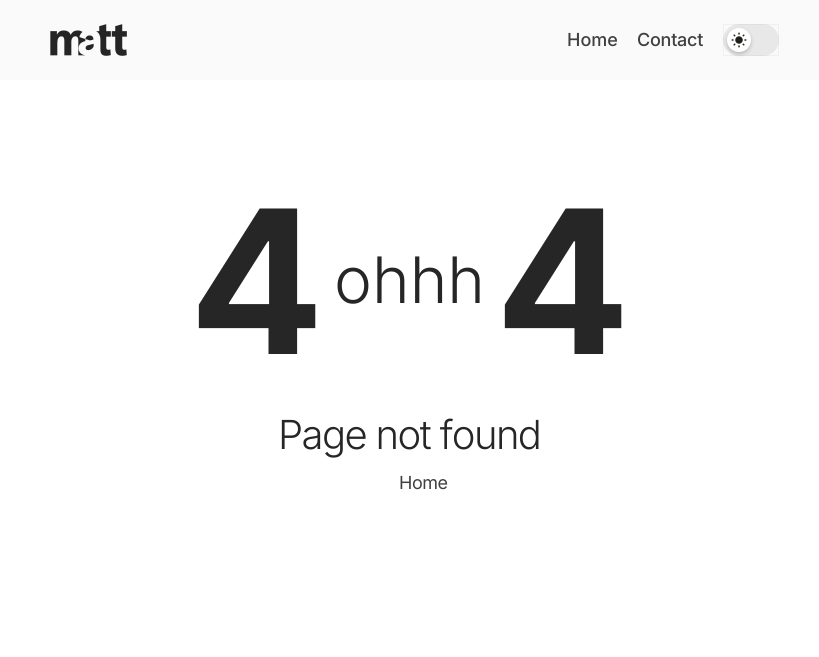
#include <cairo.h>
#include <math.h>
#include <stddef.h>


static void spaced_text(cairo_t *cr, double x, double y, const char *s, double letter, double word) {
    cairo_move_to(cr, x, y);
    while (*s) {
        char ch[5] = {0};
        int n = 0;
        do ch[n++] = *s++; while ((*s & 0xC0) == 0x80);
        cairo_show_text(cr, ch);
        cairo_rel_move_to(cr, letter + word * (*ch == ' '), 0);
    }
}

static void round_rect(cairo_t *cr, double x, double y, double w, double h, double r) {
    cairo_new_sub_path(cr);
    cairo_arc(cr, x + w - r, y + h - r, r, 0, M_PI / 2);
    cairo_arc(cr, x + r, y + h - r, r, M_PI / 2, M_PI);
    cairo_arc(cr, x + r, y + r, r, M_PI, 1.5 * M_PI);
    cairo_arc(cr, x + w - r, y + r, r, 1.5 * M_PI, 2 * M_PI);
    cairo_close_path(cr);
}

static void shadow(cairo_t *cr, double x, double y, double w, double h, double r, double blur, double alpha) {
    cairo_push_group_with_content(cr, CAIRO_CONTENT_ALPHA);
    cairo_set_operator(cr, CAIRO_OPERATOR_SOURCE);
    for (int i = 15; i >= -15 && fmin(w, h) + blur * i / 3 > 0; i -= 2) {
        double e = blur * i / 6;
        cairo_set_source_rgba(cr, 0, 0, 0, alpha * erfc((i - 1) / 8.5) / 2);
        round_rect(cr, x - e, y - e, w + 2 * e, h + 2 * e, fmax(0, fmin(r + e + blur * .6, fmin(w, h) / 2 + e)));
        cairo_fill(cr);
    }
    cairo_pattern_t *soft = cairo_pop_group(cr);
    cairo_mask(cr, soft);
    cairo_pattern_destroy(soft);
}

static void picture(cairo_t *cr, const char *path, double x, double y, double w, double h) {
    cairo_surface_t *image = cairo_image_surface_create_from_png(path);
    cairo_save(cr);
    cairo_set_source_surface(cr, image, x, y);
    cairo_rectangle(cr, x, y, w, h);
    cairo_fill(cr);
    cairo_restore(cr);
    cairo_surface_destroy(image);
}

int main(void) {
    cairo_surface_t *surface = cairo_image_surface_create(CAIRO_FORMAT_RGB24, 819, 657);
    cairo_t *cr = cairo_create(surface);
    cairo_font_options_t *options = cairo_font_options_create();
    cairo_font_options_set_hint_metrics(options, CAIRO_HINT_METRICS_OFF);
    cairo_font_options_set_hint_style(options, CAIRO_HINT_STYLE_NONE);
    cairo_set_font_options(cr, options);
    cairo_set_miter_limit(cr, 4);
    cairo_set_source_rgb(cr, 1, 1, 1);
    cairo_paint(cr);
    cairo_set_source_rgb(cr, 0.98, 0.98, 0.98);
    cairo_rectangle(cr, 0, 0, 819, 80);
    cairo_fill(cr);
    picture(cr, "img1.png", 50, 24, 77, 32);
    cairo_select_font_face(cr, "Inter Medium", CAIRO_FONT_SLANT_NORMAL, CAIRO_FONT_WEIGHT_NORMAL);
    cairo_set_font_size(cr, 18);
    cairo_set_source_rgb(cr, 0.251, 0.251, 0.251);
    cairo_move_to(cr, 567, 46);
    cairo_show_text(cr, "Home");
    spaced_text(cr, 637, 46, "Contact", -0.25, 0);
    cairo_set_source_rgb(cr, 0.91, 0.91, 0.91);
    round_rect(cr, 723, 24, 56, 32, 16);
    cairo_fill(cr);
    cairo_rectangle(cr, 723.5, 24.5, 55, 31);
    cairo_set_source_rgba(cr, 0, 0, 0, 0.04);
    cairo_set_line_width(cr, 1);
    cairo_stroke(cr);
    cairo_set_source_rgb(cr, 0, 0, 0);
    shadow(cr, 727, 30, 24, 24, 12, 2, 0.2);
    cairo_set_source_rgb(cr, 1, 1, 1);
    cairo_arc(cr, 739, 40, 12, 0, 2 * M_PI);
    cairo_fill(cr);
    picture(cr, "img2.png", 731, 32, 16, 16);
    cairo_select_font_face(cr, "Inter", CAIRO_FONT_SLANT_NORMAL, CAIRO_FONT_WEIGHT_BOLD);
    cairo_set_font_size(cr, 200);
    cairo_set_source_rgb(cr, 0.149, 0.149, 0.149);
    cairo_move_to(cr, 189, 354);
    cairo_show_text(cr, "4");
    cairo_select_font_face(cr, "Inter Light", CAIRO_FONT_SLANT_NORMAL, CAIRO_FONT_WEIGHT_NORMAL);
    cairo_set_font_size(cr, 64);
    cairo_move_to(cr, 334, 303);
    cairo_show_text(cr, "ohhh");
    cairo_select_font_face(cr, "Inter", CAIRO_FONT_SLANT_NORMAL, CAIRO_FONT_WEIGHT_BOLD);
    cairo_set_font_size(cr, 200);
    cairo_move_to(cr, 495, 354);
    cairo_show_text(cr, "4");
    cairo_select_font_face(cr, "Inter Light", CAIRO_FONT_SLANT_NORMAL, CAIRO_FONT_WEIGHT_NORMAL);
    cairo_set_font_size(cr, 40);
    spaced_text(cr, 278, 449, "Page not found", -1.6, 0);
    cairo_select_font_face(cr, "Inter", CAIRO_FONT_SLANT_NORMAL, CAIRO_FONT_WEIGHT_NORMAL);
    cairo_set_font_size(cr, 18);
    cairo_set_source_rgb(cr, 0.251, 0.251, 0.251);
    spaced_text(cr, 399, 489, "Home", -0.5, 0);
    cairo_surface_write_to_png(surface, "page.png");
    cairo_font_options_destroy(options);
    cairo_destroy(cr);
    cairo_surface_destroy(surface);
    return 0;
}
